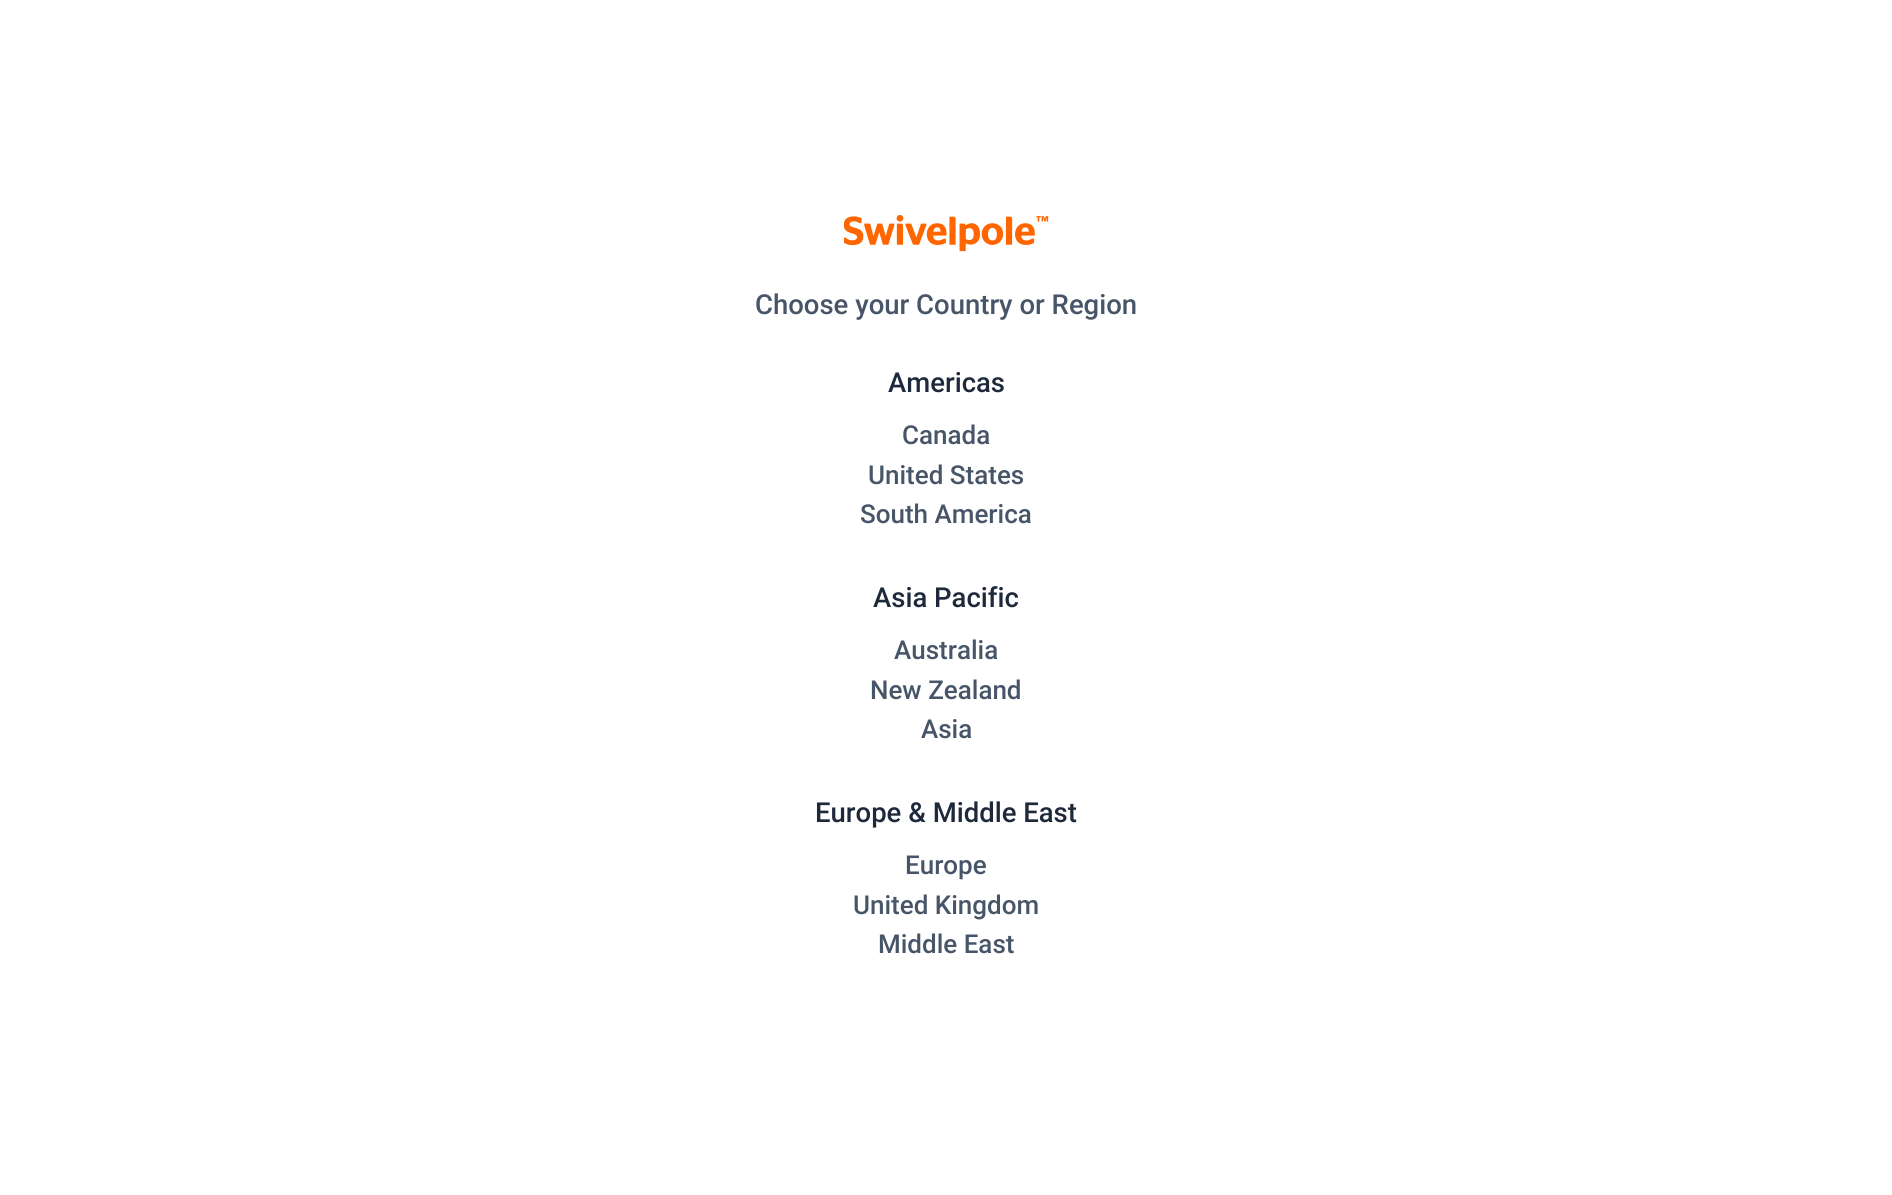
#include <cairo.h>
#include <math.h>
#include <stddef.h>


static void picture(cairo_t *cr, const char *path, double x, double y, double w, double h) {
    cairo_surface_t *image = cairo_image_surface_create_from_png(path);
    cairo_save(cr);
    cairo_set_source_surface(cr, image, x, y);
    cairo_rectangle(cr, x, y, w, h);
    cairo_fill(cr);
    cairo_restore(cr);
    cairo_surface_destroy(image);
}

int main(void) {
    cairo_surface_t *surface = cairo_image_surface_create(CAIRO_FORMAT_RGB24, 1892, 1195);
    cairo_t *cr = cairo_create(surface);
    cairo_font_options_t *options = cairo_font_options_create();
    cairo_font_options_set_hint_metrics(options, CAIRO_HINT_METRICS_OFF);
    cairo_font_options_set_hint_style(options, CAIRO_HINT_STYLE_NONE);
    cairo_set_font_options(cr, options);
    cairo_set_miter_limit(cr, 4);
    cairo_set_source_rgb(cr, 1, 1, 1);
    cairo_paint(cr);
    picture(cr, "img1.png", 844, 215, 205, 37);
    cairo_select_font_face(cr, "Roboto Medium", CAIRO_FONT_SLANT_NORMAL, CAIRO_FONT_WEIGHT_NORMAL);
    cairo_set_font_size(cr, 27.5);
    cairo_set_source_rgb(cr, 0.278, 0.333, 0.412);
    cairo_move_to(cr, 755, 314);
    cairo_show_text(cr, "Choose your Country or Region");
    cairo_set_source_rgb(cr, 0.118, 0.161, 0.231);
    cairo_move_to(cr, 888, 392);
    cairo_show_text(cr, "Americas");
    cairo_set_font_size(cr, 26);
    cairo_set_source_rgb(cr, 0.278, 0.333, 0.412);
    cairo_move_to(cr, 902, 444);
    cairo_show_text(cr, "Canada");
    cairo_move_to(cr, 868, 484);
    cairo_show_text(cr, "United States");
    cairo_move_to(cr, 860, 523);
    cairo_show_text(cr, "South America");
    cairo_set_font_size(cr, 27.5);
    cairo_set_source_rgb(cr, 0.118, 0.161, 0.231);
    cairo_move_to(cr, 873, 607);
    cairo_show_text(cr, "Asia Pacific");
    cairo_set_font_size(cr, 26);
    cairo_set_source_rgb(cr, 0.278, 0.333, 0.412);
    cairo_move_to(cr, 894, 659);
    cairo_show_text(cr, "Australia");
    cairo_move_to(cr, 870, 699);
    cairo_show_text(cr, "New Zealand");
    cairo_move_to(cr, 921, 738);
    cairo_show_text(cr, "Asia");
    cairo_set_font_size(cr, 27.5);
    cairo_set_source_rgb(cr, 0.118, 0.161, 0.231);
    cairo_move_to(cr, 815, 822);
    cairo_show_text(cr, "Europe & Middle East");
    cairo_set_font_size(cr, 26);
    cairo_set_source_rgb(cr, 0.278, 0.333, 0.412);
    cairo_move_to(cr, 905, 874);
    cairo_show_text(cr, "Europe");
    cairo_move_to(cr, 853, 914);
    cairo_show_text(cr, "United Kingdom");
    cairo_move_to(cr, 878, 953);
    cairo_show_text(cr, "Middle East");
    cairo_surface_write_to_png(surface, "page.png");
    cairo_font_options_destroy(options);
    cairo_destroy(cr);
    cairo_surface_destroy(surface);
    return 0;
}
